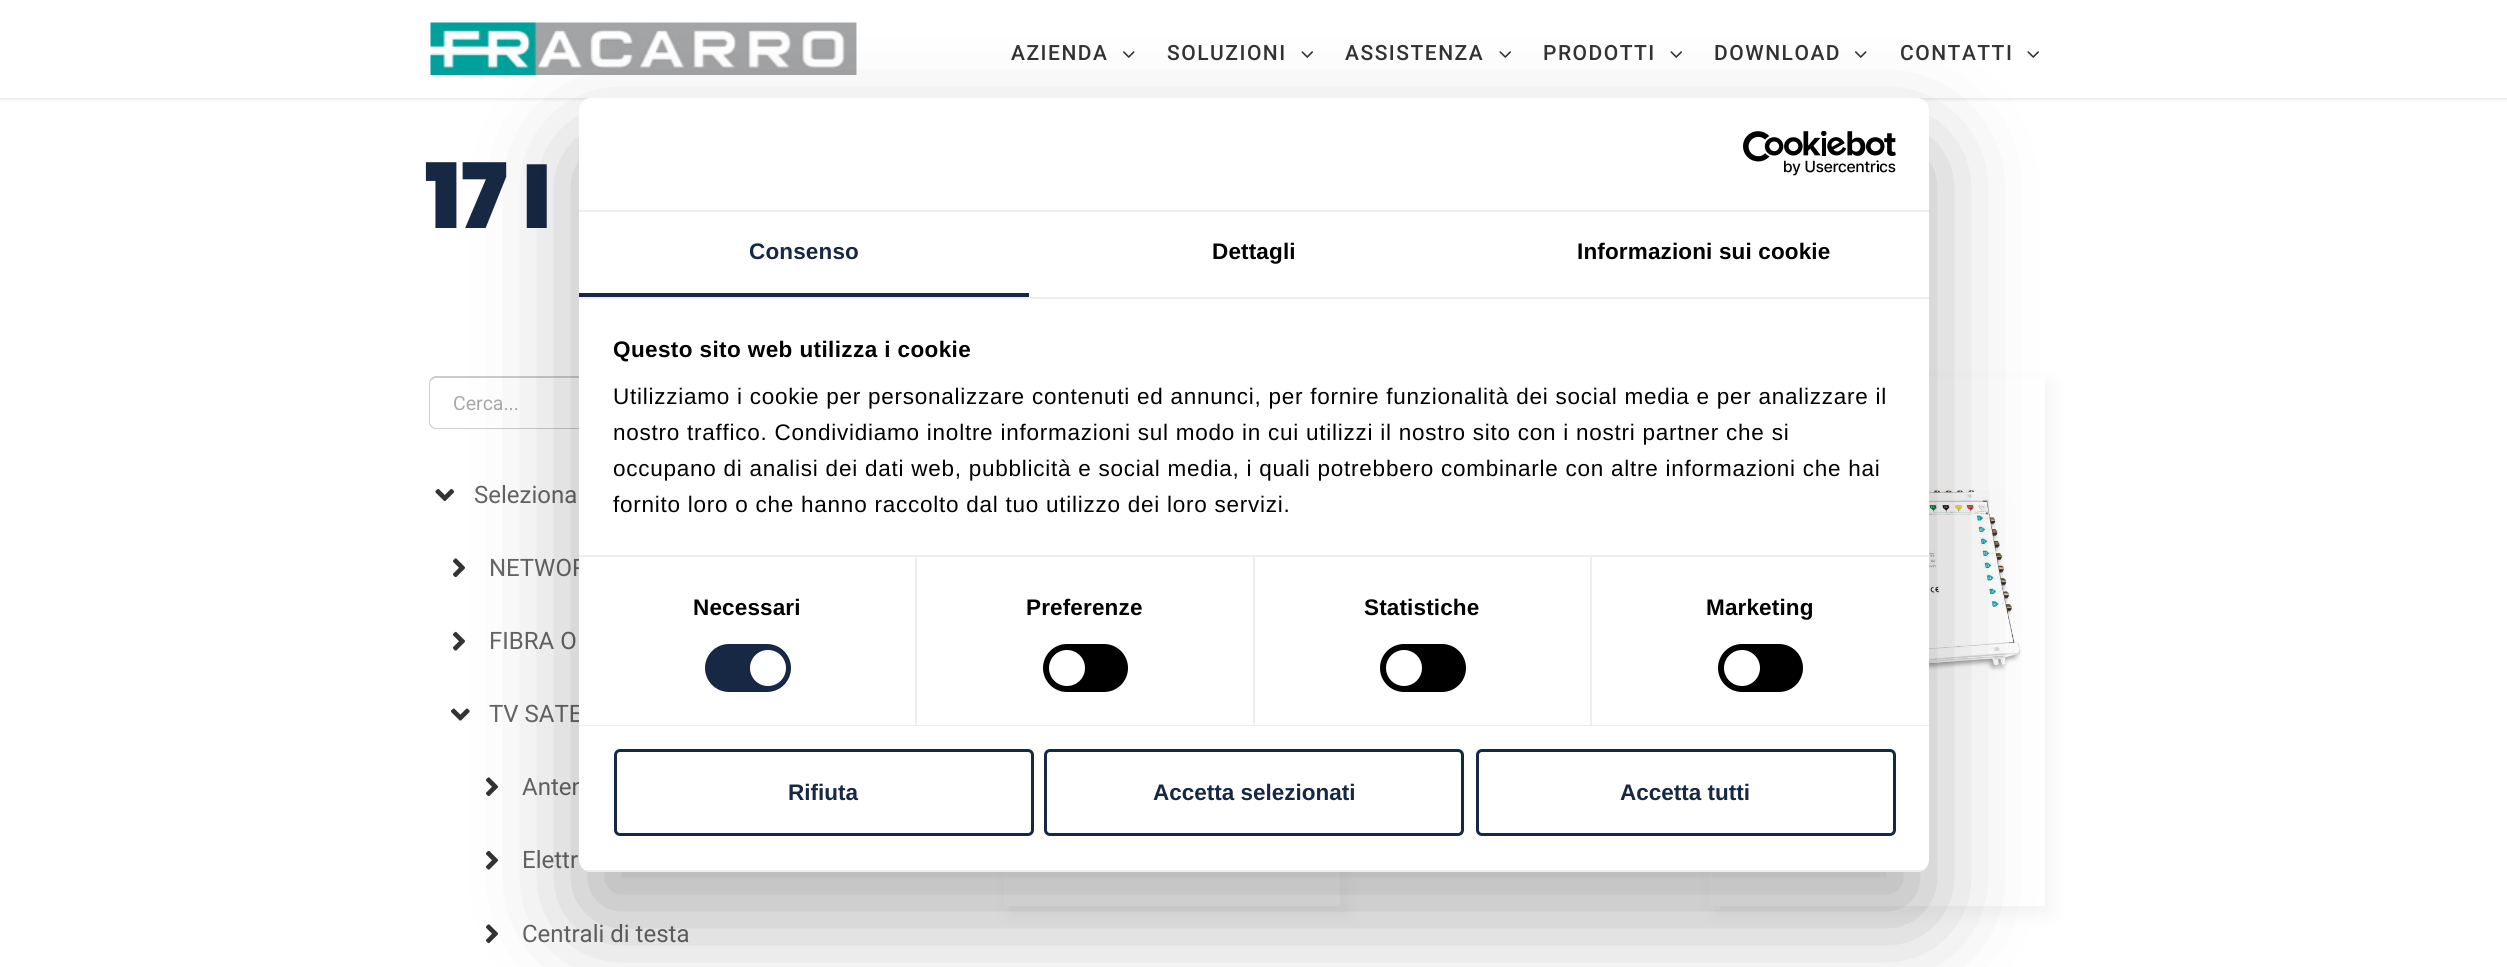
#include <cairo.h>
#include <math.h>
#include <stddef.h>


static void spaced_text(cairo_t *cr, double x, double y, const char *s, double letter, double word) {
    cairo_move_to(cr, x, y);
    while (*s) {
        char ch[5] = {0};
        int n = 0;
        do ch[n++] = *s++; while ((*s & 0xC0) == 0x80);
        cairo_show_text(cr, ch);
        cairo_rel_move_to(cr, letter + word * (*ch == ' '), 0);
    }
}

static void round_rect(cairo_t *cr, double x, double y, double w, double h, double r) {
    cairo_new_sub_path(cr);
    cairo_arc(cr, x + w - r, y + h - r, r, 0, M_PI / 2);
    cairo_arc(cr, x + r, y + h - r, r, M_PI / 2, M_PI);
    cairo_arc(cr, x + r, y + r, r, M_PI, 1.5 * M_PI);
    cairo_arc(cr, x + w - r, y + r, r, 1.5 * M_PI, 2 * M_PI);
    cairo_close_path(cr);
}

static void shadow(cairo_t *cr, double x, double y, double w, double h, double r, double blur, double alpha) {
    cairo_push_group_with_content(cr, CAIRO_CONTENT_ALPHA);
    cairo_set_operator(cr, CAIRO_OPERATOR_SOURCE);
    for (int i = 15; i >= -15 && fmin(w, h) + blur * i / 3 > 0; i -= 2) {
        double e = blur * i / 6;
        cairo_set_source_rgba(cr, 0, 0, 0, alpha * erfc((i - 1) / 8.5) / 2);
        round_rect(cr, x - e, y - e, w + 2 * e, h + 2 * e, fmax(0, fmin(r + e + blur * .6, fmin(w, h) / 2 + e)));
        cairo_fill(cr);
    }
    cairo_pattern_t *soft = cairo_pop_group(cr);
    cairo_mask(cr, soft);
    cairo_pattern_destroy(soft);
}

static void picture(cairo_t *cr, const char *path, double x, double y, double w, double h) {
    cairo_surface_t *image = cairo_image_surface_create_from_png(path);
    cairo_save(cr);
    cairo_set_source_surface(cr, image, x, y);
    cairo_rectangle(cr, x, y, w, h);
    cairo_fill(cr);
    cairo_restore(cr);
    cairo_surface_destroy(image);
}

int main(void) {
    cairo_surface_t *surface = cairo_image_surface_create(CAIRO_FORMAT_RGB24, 2507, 967);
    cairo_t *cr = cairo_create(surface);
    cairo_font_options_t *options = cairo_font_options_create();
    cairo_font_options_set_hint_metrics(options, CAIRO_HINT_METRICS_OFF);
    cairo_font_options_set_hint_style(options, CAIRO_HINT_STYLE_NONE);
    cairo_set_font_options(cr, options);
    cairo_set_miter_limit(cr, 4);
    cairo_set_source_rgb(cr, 1, 1, 1);
    cairo_paint(cr);
    cairo_set_source_rgb(cr, 0, 0, 0);
    shadow(cr, 0, 2, 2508, 97, 0, 2, 0.12);
    cairo_set_source_rgb(cr, 1, 1, 1);
    cairo_rectangle(cr, 0, 0, 2507, 98);
    cairo_fill(cr);
    picture(cr, "img1.png", 430, 22, 427, 53);
    cairo_select_font_face(cr, "Roboto Medium", CAIRO_FONT_SLANT_NORMAL, CAIRO_FONT_WEIGHT_NORMAL);
    cairo_set_font_size(cr, 21);
    cairo_set_source_rgb(cr, 0.2, 0.2, 0.2);
    spaced_text(cr, 1011, 60, "AZIENDA", 1.5, 0);
    picture(cr, "img2.png", 1123, 51, 12, 7);
    spaced_text(cr, 1167, 60, "SOLUZIONI", 1.5, 0);
    picture(cr, "img3.png", 1301, 51, 12, 7);
    spaced_text(cr, 1345, 60, "ASSISTENZA", 1.5, 0);
    picture(cr, "img3.png", 1499, 51, 12, 7);
    spaced_text(cr, 1543, 60, "PRODOTTI", 1.5, 0);
    picture(cr, "img3.png", 1670, 51, 12, 7);
    spaced_text(cr, 1714, 60, "DOWNLOAD", 1.5, 0);
    picture(cr, "img2.png", 1855, 51, 12, 7);
    spaced_text(cr, 1900, 60, "CONTATTI", 1.5, 0);
    picture(cr, "img3.png", 2027, 51, 12, 7);
    cairo_select_font_face(cr, "Poppins Black", CAIRO_FONT_SLANT_NORMAL, CAIRO_FONT_WEIGHT_NORMAL);
    cairo_set_font_size(cr, 90);
    cairo_set_source_rgb(cr, 0.09, 0.157, 0.267);
    cairo_move_to(cr, 425, 228);
    cairo_show_text(cr, "17 I");
    cairo_set_source_rgb(cr, 0.8, 0.8, 0.8);
    cairo_set_fill_rule(cr, CAIRO_FILL_RULE_EVEN_ODD);
    cairo_new_path(cr);
    cairo_move_to(cr, 436, 376);
    cairo_line_to(cr, 902, 376);
    cairo_line_to(cr, 902, 429);
    cairo_line_to(cr, 436, 429);
    cairo_curve_to(cr, 432, 429, 429, 426, 429, 422);
    cairo_line_to(cr, 429, 384);
    cairo_curve_to(cr, 429, 380, 432, 376, 436, 376);
    cairo_close_path(cr);
    cairo_move_to(cr, 436, 378);
    cairo_line_to(cr, 902, 378);
    cairo_line_to(cr, 902, 428);
    cairo_line_to(cr, 436, 428);
    cairo_curve_to(cr, 433, 428, 430, 425, 430, 422);
    cairo_line_to(cr, 430, 384);
    cairo_curve_to(cr, 430, 381, 433, 378, 436, 378);
    cairo_close_path(cr);
    cairo_fill(cr);
    cairo_select_font_face(cr, "Roboto", CAIRO_FONT_SLANT_NORMAL, CAIRO_FONT_WEIGHT_NORMAL);
    cairo_set_font_size(cr, 19.5);
    cairo_set_source_rgb(cr, 0.667, 0.663, 0.663);
    cairo_move_to(cr, 453, 410);
    cairo_show_text(cr, "Cerca...");
    picture(cr, "img4.png", 435, 489, 20, 12);
    cairo_set_font_size(cr, 24);
    cairo_set_source_rgb(cr, 0.4, 0.4, 0.4);
    cairo_move_to(cr, 474, 503);
    cairo_show_text(cr, "Seleziona");
    picture(cr, "img5.png", 453, 558, 12, 20);
    cairo_move_to(cr, 489, 576);
    cairo_show_text(cr, "NETWOR");
    picture(cr, "img6.png", 453, 631, 12, 20);
    cairo_move_to(cr, 489, 649);
    cairo_show_text(cr, "FIBRA O");
    picture(cr, "img7.png", 451, 708, 19, 13);
    cairo_move_to(cr, 489, 722);
    cairo_show_text(cr, "TV SATE");
    picture(cr, "img5.png", 486, 777, 12, 20);
    cairo_move_to(cr, 522, 795);
    cairo_show_text(cr, "Anten");
    picture(cr, "img6.png", 486, 850, 12, 20);
    cairo_move_to(cr, 522, 868);
    cairo_show_text(cr, "Elettr");
    picture(cr, "img5.png", 486, 924, 12, 20);
    cairo_move_to(cr, 522, 942);
    cairo_show_text(cr, "Centrali di testa");
    cairo_set_source_rgb(cr, 0.957, 0.957, 0.961);
    shadow(cr, 1010, 383, 337, 532, 0, 7.5, 1);
    cairo_set_source_rgb(cr, 1, 1, 1);
    cairo_rectangle(cr, 1004, 872, 336, 34);
    cairo_fill(cr);
    cairo_set_source_rgb(cr, 0.957, 0.957, 0.961);
    shadow(cr, 1715, 383, 337, 532, 0, 7.5, 1);
    cairo_set_source_rgb(cr, 1, 1, 1);
    cairo_rectangle(cr, 1709, 377, 336, 529);
    cairo_fill(cr);
    picture(cr, "img8.png", 1929, 489, 92, 202);
    cairo_set_source_rgb(cr, 0, 0, 0);
    shadow(cr, 579, 146, 1350, 774, 12, 51, 0.3);
    cairo_set_source_rgb(cr, 1, 1, 1);
    round_rect(cr, 579, 98, 1350, 774, 12);
    cairo_fill(cr);
    cairo_set_source_rgb(cr, 0.933, 0.933, 0.933);
    cairo_rectangle(cr, 579, 210, 1350, 2);
    cairo_fill(cr);
    picture(cr, "img9.png", 1743, 131, 153, 45);
    cairo_rectangle(cr, 579, 297, 1350, 2);
    cairo_fill(cr);
    cairo_set_source_rgb(cr, 0.09, 0.157, 0.267);
    cairo_rectangle(cr, 579, 293, 450, 4);
    cairo_fill(cr);
    cairo_select_font_face(cr, "Liberation Sans", CAIRO_FONT_SLANT_NORMAL, CAIRO_FONT_WEIGHT_BOLD);
    cairo_set_font_size(cr, 22.5);
    spaced_text(cr, 749, 259, "Consenso", 0.15, 0);
    cairo_set_source_rgb(cr, 0, 0, 0);
    spaced_text(cr, 1212, 259, "Dettagli", 0.15, 0);
    spaced_text(cr, 1577, 259, "Informazioni sui cookie", 0.15, 0);
    cairo_set_source_rgb(cr, 0.933, 0.933, 0.933);
    cairo_rectangle(cr, 579, 555, 1350, 2);
    cairo_fill(cr);
    cairo_set_source_rgb(cr, 0, 0, 0);
    spaced_text(cr, 613, 357, "Questo sito web utilizza i cookie", 0.4, 0);
    cairo_select_font_face(cr, "Liberation Sans", CAIRO_FONT_SLANT_NORMAL, CAIRO_FONT_WEIGHT_NORMAL);
    spaced_text(cr, 613, 404, "Utilizziamo i cookie per personalizzare contenuti ed annunci, per fornire funzionalità dei social media e per analizzare il", 0.75, 0);
    spaced_text(cr, 613, 440, "nostro traffico. Condividiamo inoltre informazioni sul modo in cui utilizzi il nostro sito con i nostri partner che si", 0.75, 0);
    spaced_text(cr, 613, 476, "occupano di analisi dei dati web, pubblicità e social media, i quali potrebbero combinarle con altre informazioni che hai", 0.75, 0);
    spaced_text(cr, 613, 512, "fornito loro o che hanno raccolto dal tuo utilizzo dei loro servizi.", 0.75, 0);
    cairo_set_source_rgb(cr, 0.933, 0.933, 0.933);
    cairo_rectangle(cr, 579, 725, 1350, 1);
    cairo_fill(cr);
    cairo_rectangle(cr, 915, 557, 2, 168);
    cairo_fill(cr);
    cairo_select_font_face(cr, "Liberation Sans", CAIRO_FONT_SLANT_NORMAL, CAIRO_FONT_WEIGHT_BOLD);
    cairo_set_source_rgb(cr, 0, 0, 0);
    spaced_text(cr, 693, 615, "Necessari", 0.15, 0);
    cairo_set_source_rgb(cr, 0.09, 0.157, 0.267);
    round_rect(cr, 705, 644, 86, 48, 24);
    cairo_fill(cr);
    cairo_set_source_rgb(cr, 1, 1, 1);
    cairo_arc(cr, 768, 668, 18, 0, 2 * M_PI);
    cairo_fill(cr);
    cairo_set_source_rgb(cr, 0.933, 0.933, 0.933);
    cairo_rectangle(cr, 1253, 557, 2, 168);
    cairo_fill(cr);
    cairo_set_source_rgb(cr, 0, 0, 0);
    spaced_text(cr, 1026, 615, "Preferenze", 0.15, 0);
    round_rect(cr, 1043, 644, 85, 48, 24);
    cairo_fill(cr);
    cairo_set_source_rgb(cr, 1, 1, 1);
    cairo_arc(cr, 1067, 668, 18, 0, 2 * M_PI);
    cairo_fill(cr);
    cairo_set_source_rgb(cr, 0.933, 0.933, 0.933);
    cairo_rectangle(cr, 1590, 557, 2, 168);
    cairo_fill(cr);
    cairo_set_source_rgb(cr, 0, 0, 0);
    spaced_text(cr, 1364, 615, "Statistiche", 0.15, 0);
    round_rect(cr, 1380, 644, 86, 48, 24);
    cairo_fill(cr);
    cairo_set_source_rgb(cr, 1, 1, 1);
    cairo_arc(cr, 1404, 668, 18, 0, 2 * M_PI);
    cairo_fill(cr);
    cairo_set_source_rgb(cr, 0, 0, 0);
    spaced_text(cr, 1706, 615, "Marketing", 0.15, 0);
    round_rect(cr, 1718, 644, 85, 48, 24);
    cairo_fill(cr);
    cairo_set_source_rgb(cr, 1, 1, 1);
    cairo_arc(cr, 1742, 668, 18, 0, 2 * M_PI);
    cairo_fill(cr);
    cairo_save(cr);
    cairo_set_fill_rule(cr, CAIRO_FILL_RULE_WINDING);
    round_rect(cr, 579, 98, 1350, 774, 12);
    cairo_clip(cr);
    cairo_set_source_rgb(cr, 0.933, 0.933, 0.933);
    cairo_rectangle(cr, 579, 870, 1350, 2);
    cairo_fill(cr);
    cairo_restore(cr);
    round_rect(cr, 615.5, 750.5, 417, 84, 4.5);
    cairo_set_source_rgb(cr, 0.09, 0.157, 0.267);
    cairo_set_line_width(cr, 3);
    cairo_stroke(cr);
    cairo_move_to(cr, 788, 800);
    cairo_show_text(cr, "Rifiuta");
    round_rect(cr, 1045.5, 750.5, 417, 84, 4.5);
    cairo_stroke(cr);
    cairo_move_to(cr, 1153, 800);
    cairo_show_text(cr, "Accetta selezionati");
    round_rect(cr, 1477.5, 750.5, 417, 84, 4.5);
    cairo_stroke(cr);
    cairo_move_to(cr, 1620, 800);
    cairo_show_text(cr, "Accetta tutti");
    cairo_surface_write_to_png(surface, "page.png");
    cairo_font_options_destroy(options);
    cairo_destroy(cr);
    cairo_surface_destroy(surface);
    return 0;
}
